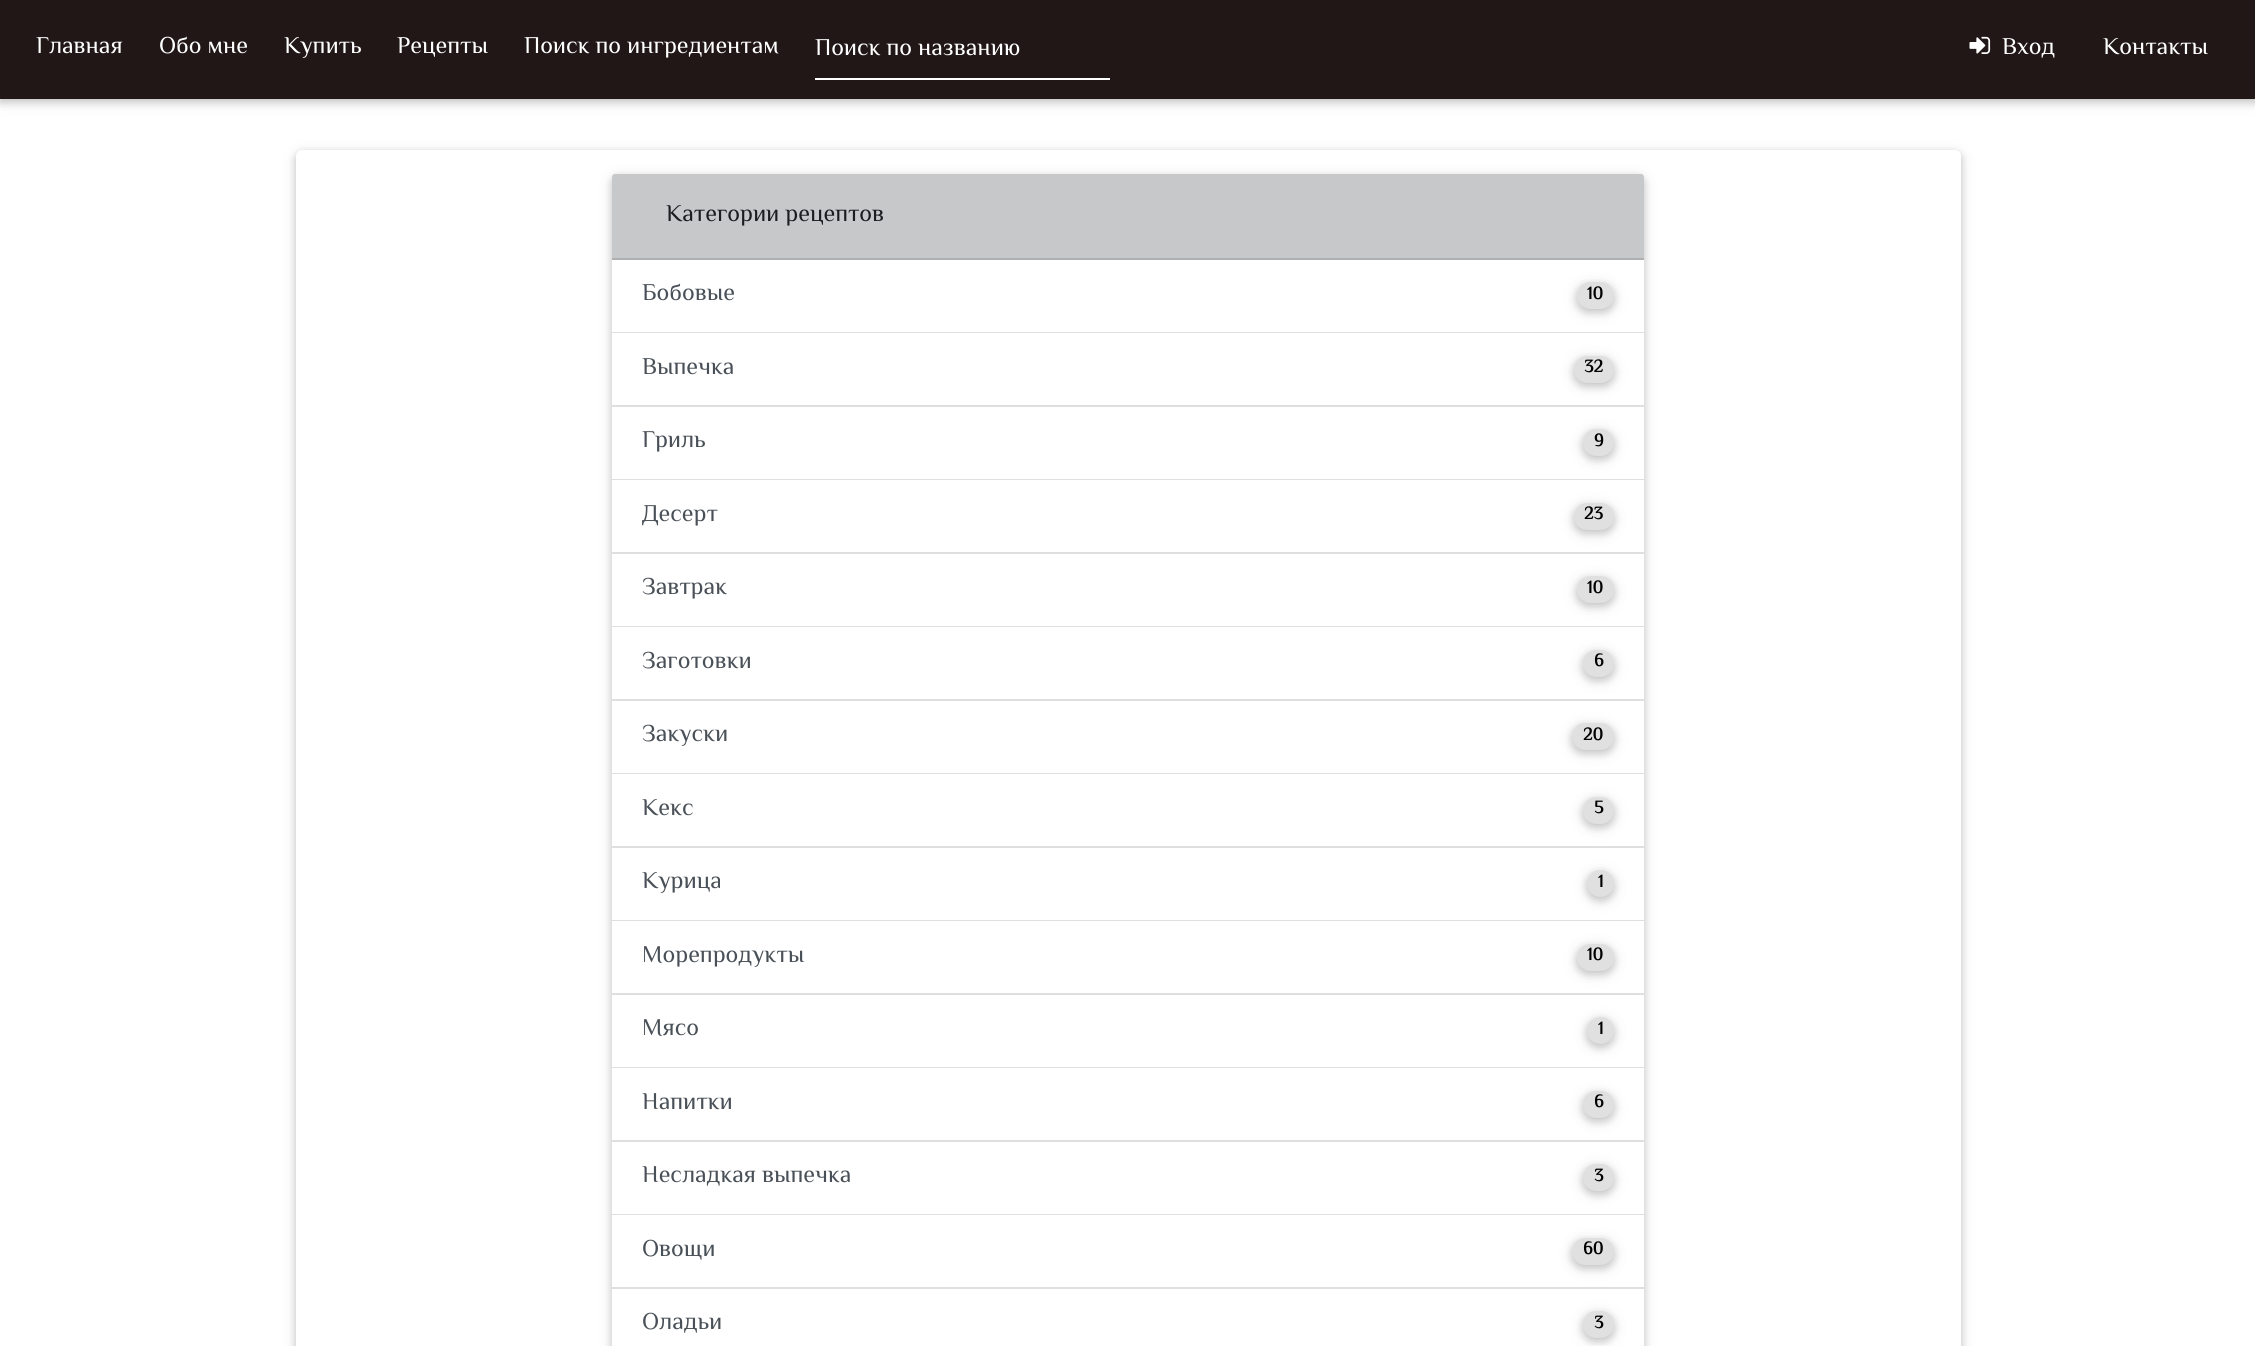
#include <cairo.h>
#include <math.h>
#include <stddef.h>


static void round_rect(cairo_t *cr, double x, double y, double w, double h, double r) {
    cairo_new_sub_path(cr);
    cairo_arc(cr, x + w - r, y + h - r, r, 0, M_PI / 2);
    cairo_arc(cr, x + r, y + h - r, r, M_PI / 2, M_PI);
    cairo_arc(cr, x + r, y + r, r, M_PI, 1.5 * M_PI);
    cairo_arc(cr, x + w - r, y + r, r, 1.5 * M_PI, 2 * M_PI);
    cairo_close_path(cr);
}

static void shadow(cairo_t *cr, double x, double y, double w, double h, double r, double blur, double alpha) {
    cairo_push_group_with_content(cr, CAIRO_CONTENT_ALPHA);
    cairo_set_operator(cr, CAIRO_OPERATOR_SOURCE);
    for (int i = 15; i >= -15 && fmin(w, h) + blur * i / 3 > 0; i -= 2) {
        double e = blur * i / 6;
        cairo_set_source_rgba(cr, 0, 0, 0, alpha * erfc((i - 1) / 8.5) / 2);
        round_rect(cr, x - e, y - e, w + 2 * e, h + 2 * e, fmax(0, fmin(r + e + blur * .6, fmin(w, h) / 2 + e)));
        cairo_fill(cr);
    }
    cairo_pattern_t *soft = cairo_pop_group(cr);
    cairo_mask(cr, soft);
    cairo_pattern_destroy(soft);
}

static void picture(cairo_t *cr, const char *path, double x, double y, double w, double h) {
    cairo_surface_t *image = cairo_image_surface_create_from_png(path);
    cairo_save(cr);
    cairo_set_source_surface(cr, image, x, y);
    cairo_rectangle(cr, x, y, w, h);
    cairo_fill(cr);
    cairo_restore(cr);
    cairo_surface_destroy(image);
}

int main(void) {
    cairo_surface_t *surface = cairo_image_surface_create(CAIRO_FORMAT_RGB24, 2255, 1346);
    cairo_t *cr = cairo_create(surface);
    cairo_font_options_t *options = cairo_font_options_create();
    cairo_font_options_set_hint_metrics(options, CAIRO_HINT_METRICS_OFF);
    cairo_font_options_set_hint_style(options, CAIRO_HINT_STYLE_NONE);
    cairo_set_font_options(cr, options);
    cairo_set_miter_limit(cr, 4);
    cairo_set_source_rgb(cr, 1, 1, 1);
    cairo_paint(cr);
    cairo_set_source_rgb(cr, 0, 0, 0);
    shadow(cr, 0, 3, 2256, 99, 0, 7.5, 0.12);
    shadow(cr, 0, 3, 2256, 99, 0, 4, 0.16);
    cairo_set_source_rgb(cr, 0.129, 0.09, 0.09);
    cairo_rectangle(cr, 0, 0, 2255, 99);
    cairo_fill(cr);
    cairo_select_font_face(cr, "El Messiri", CAIRO_FONT_SLANT_NORMAL, CAIRO_FONT_WEIGHT_NORMAL);
    cairo_set_font_size(cr, 24);
    cairo_set_source_rgb(cr, 1, 1, 1);
    cairo_move_to(cr, 36, 53);
    cairo_show_text(cr, "Главная");
    cairo_move_to(cr, 159, 53);
    cairo_show_text(cr, "Обо мне");
    cairo_move_to(cr, 284, 53);
    cairo_show_text(cr, "Купить");
    cairo_move_to(cr, 397, 53);
    cairo_show_text(cr, "Рецепты");
    cairo_move_to(cr, 524, 53);
    cairo_show_text(cr, "Поиск по ингредиентам");
    cairo_rectangle(cr, 815, 78, 295, 2);
    cairo_fill(cr);
    cairo_move_to(cr, 815, 55);
    cairo_show_text(cr, "Поиск по названию");
    picture(cr, "img1.png", 1969, 36, 22, 18);
    cairo_move_to(cr, 2002, 54);
    cairo_show_text(cr, "Вход");
    cairo_move_to(cr, 2103, 54);
    cairo_show_text(cr, "Контакты");
    cairo_set_source_rgb(cr, 0, 0, 0);
    shadow(cr, 296, 153, 1665, 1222, 6, 7.5, 0.12);
    shadow(cr, 296, 153, 1665, 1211, 6, 4, 0.16);
    cairo_set_source_rgb(cr, 1, 1, 1);
    round_rect(cr, 296, 150, 1665, 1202, 6);
    cairo_fill(cr);
    cairo_save(cr);
    cairo_set_fill_rule(cr, CAIRO_FILL_RULE_EVEN_ODD);
    cairo_new_path(cr);
    cairo_move_to(cr, 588, 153);
    cairo_line_to(cr, 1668, 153);
    cairo_line_to(cr, 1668, 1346);
    cairo_line_to(cr, 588, 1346);
    cairo_close_path(cr);
    cairo_move_to(cr, 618, 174);
    cairo_line_to(cr, 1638, 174);
    cairo_curve_to(cr, 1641.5, 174, 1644, 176.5, 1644, 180);
    cairo_line_to(cr, 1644, 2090);
    cairo_curve_to(cr, 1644, 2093.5, 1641.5, 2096, 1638, 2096);
    cairo_line_to(cr, 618, 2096);
    cairo_curve_to(cr, 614.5, 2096, 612, 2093.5, 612, 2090);
    cairo_line_to(cr, 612, 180);
    cairo_curve_to(cr, 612, 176.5, 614.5, 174, 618, 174);
    cairo_close_path(cr);
    cairo_clip(cr);
    cairo_set_source_rgb(cr, 0, 0, 0);
    shadow(cr, 612, 177, 1032, 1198, 6, 7.5, 0.12);
    cairo_restore(cr);
    cairo_save(cr);
    cairo_set_fill_rule(cr, CAIRO_FILL_RULE_EVEN_ODD);
    cairo_new_path(cr);
    cairo_move_to(cr, 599, 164);
    cairo_line_to(cr, 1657, 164);
    cairo_line_to(cr, 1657, 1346);
    cairo_line_to(cr, 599, 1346);
    cairo_close_path(cr);
    cairo_move_to(cr, 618, 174);
    cairo_line_to(cr, 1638, 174);
    cairo_curve_to(cr, 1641.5, 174, 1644, 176.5, 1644, 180);
    cairo_line_to(cr, 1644, 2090);
    cairo_curve_to(cr, 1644, 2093.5, 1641.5, 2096, 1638, 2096);
    cairo_line_to(cr, 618, 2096);
    cairo_curve_to(cr, 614.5, 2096, 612, 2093.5, 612, 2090);
    cairo_line_to(cr, 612, 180);
    cairo_curve_to(cr, 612, 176.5, 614.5, 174, 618, 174);
    cairo_close_path(cr);
    cairo_clip(cr);
    cairo_set_source_rgb(cr, 0, 0, 0);
    shadow(cr, 612, 177, 1032, 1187, 6, 4, 0.16);
    cairo_restore(cr);
    cairo_set_source_rgb(cr, 0.776, 0.784, 0.792);
    cairo_new_path(cr);
    cairo_move_to(cr, 615, 174);
    cairo_line_to(cr, 1641, 174);
    cairo_curve_to(cr, 1642.5, 174, 1644, 175.5, 1644, 177);
    cairo_line_to(cr, 1644, 260);
    cairo_line_to(cr, 612, 260);
    cairo_line_to(cr, 612, 177);
    cairo_curve_to(cr, 612, 175.5, 613.5, 174, 615, 174);
    cairo_close_path(cr);
    cairo_fill(cr);
    cairo_set_source_rgb(cr, 0.678, 0.686, 0.694);
    cairo_rectangle(cr, 612, 258, 1032, 2);
    cairo_fill(cr);
    cairo_set_source_rgb(cr, 0.106, 0.118, 0.129);
    cairo_move_to(cr, 666, 221);
    cairo_show_text(cr, "Категории рецептов");
    cairo_set_source_rgb(cr, 0.875, 0.875, 0.875);
    cairo_rectangle(cr, 612, 332, 1032, 1);
    cairo_fill(cr);
    cairo_set_source_rgb(cr, 0.286, 0.314, 0.341);
    cairo_move_to(cr, 642, 300);
    cairo_show_text(cr, "Бобовые");
    cairo_set_source_rgb(cr, 0, 0, 0);
    shadow(cr, 1577, 285, 37, 27, 13.5, 7.5, 0.12);
    shadow(cr, 1577, 285, 37, 27, 13.5, 4, 0.16);
    cairo_set_source_rgb(cr, 0.878, 0.878, 0.878);
    round_rect(cr, 1577, 282, 37, 27, 13.5);
    cairo_fill(cr);
    cairo_select_font_face(cr, "El Messiri", CAIRO_FONT_SLANT_NORMAL, CAIRO_FONT_WEIGHT_BOLD);
    cairo_set_font_size(cr, 18);
    cairo_set_source_rgb(cr, 0, 0, 0);
    cairo_move_to(cr, 1587, 299);
    cairo_show_text(cr, "10");
    cairo_set_source_rgb(cr, 0.875, 0.875, 0.875);
    cairo_rectangle(cr, 612, 405, 1032, 2);
    cairo_fill(cr);
    cairo_select_font_face(cr, "El Messiri", CAIRO_FONT_SLANT_NORMAL, CAIRO_FONT_WEIGHT_NORMAL);
    cairo_set_font_size(cr, 24);
    cairo_set_source_rgb(cr, 0.286, 0.314, 0.341);
    cairo_move_to(cr, 642, 374);
    cairo_show_text(cr, "Выпечка");
    cairo_set_source_rgb(cr, 0, 0, 0);
    shadow(cr, 1574, 359, 40, 27, 13.5, 7.5, 0.12);
    shadow(cr, 1574, 359, 40, 27, 13.5, 4, 0.16);
    cairo_set_source_rgb(cr, 0.878, 0.878, 0.878);
    round_rect(cr, 1574, 356, 40, 27, 13.5);
    cairo_fill(cr);
    cairo_select_font_face(cr, "El Messiri", CAIRO_FONT_SLANT_NORMAL, CAIRO_FONT_WEIGHT_BOLD);
    cairo_set_font_size(cr, 18);
    cairo_set_source_rgb(cr, 0, 0, 0);
    cairo_move_to(cr, 1584, 372);
    cairo_show_text(cr, "32");
    cairo_set_source_rgb(cr, 0.875, 0.875, 0.875);
    cairo_rectangle(cr, 612, 479, 1032, 1);
    cairo_fill(cr);
    cairo_select_font_face(cr, "El Messiri", CAIRO_FONT_SLANT_NORMAL, CAIRO_FONT_WEIGHT_NORMAL);
    cairo_set_font_size(cr, 24);
    cairo_set_source_rgb(cr, 0.286, 0.314, 0.341);
    cairo_move_to(cr, 642, 447);
    cairo_show_text(cr, "Гриль");
    cairo_set_source_rgb(cr, 0, 0, 0);
    shadow(cr, 1583, 432, 31, 27, 13.5, 7.5, 0.12);
    shadow(cr, 1583, 432, 31, 27, 13.5, 4, 0.16);
    cairo_set_source_rgb(cr, 0.878, 0.878, 0.878);
    round_rect(cr, 1583, 429, 31, 27, 13.5);
    cairo_fill(cr);
    cairo_select_font_face(cr, "El Messiri", CAIRO_FONT_SLANT_NORMAL, CAIRO_FONT_WEIGHT_BOLD);
    cairo_set_font_size(cr, 18);
    cairo_set_source_rgb(cr, 0, 0, 0);
    cairo_move_to(cr, 1594, 446);
    cairo_show_text(cr, "9");
    cairo_set_source_rgb(cr, 0.875, 0.875, 0.875);
    cairo_rectangle(cr, 612, 552, 1032, 2);
    cairo_fill(cr);
    cairo_select_font_face(cr, "El Messiri", CAIRO_FONT_SLANT_NORMAL, CAIRO_FONT_WEIGHT_NORMAL);
    cairo_set_font_size(cr, 24);
    cairo_set_source_rgb(cr, 0.286, 0.314, 0.341);
    cairo_move_to(cr, 642, 521);
    cairo_show_text(cr, "Десерт");
    cairo_set_source_rgb(cr, 0, 0, 0);
    shadow(cr, 1574, 506, 40, 27, 13.5, 7.5, 0.12);
    shadow(cr, 1574, 506, 40, 27, 13.5, 4, 0.16);
    cairo_set_source_rgb(cr, 0.878, 0.878, 0.878);
    round_rect(cr, 1574, 503, 40, 27, 13.5);
    cairo_fill(cr);
    cairo_select_font_face(cr, "El Messiri", CAIRO_FONT_SLANT_NORMAL, CAIRO_FONT_WEIGHT_BOLD);
    cairo_set_font_size(cr, 18);
    cairo_set_source_rgb(cr, 0, 0, 0);
    cairo_move_to(cr, 1584, 519);
    cairo_show_text(cr, "23");
    cairo_set_source_rgb(cr, 0.875, 0.875, 0.875);
    cairo_rectangle(cr, 612, 626, 1032, 1);
    cairo_fill(cr);
    cairo_select_font_face(cr, "El Messiri", CAIRO_FONT_SLANT_NORMAL, CAIRO_FONT_WEIGHT_NORMAL);
    cairo_set_font_size(cr, 24);
    cairo_set_source_rgb(cr, 0.286, 0.314, 0.341);
    cairo_move_to(cr, 642, 594);
    cairo_show_text(cr, "Завтрак");
    cairo_set_source_rgb(cr, 0, 0, 0);
    shadow(cr, 1577, 579, 37, 27, 13.5, 7.5, 0.12);
    shadow(cr, 1577, 579, 37, 27, 13.5, 4, 0.16);
    cairo_set_source_rgb(cr, 0.878, 0.878, 0.878);
    round_rect(cr, 1577, 576, 37, 27, 13.5);
    cairo_fill(cr);
    cairo_select_font_face(cr, "El Messiri", CAIRO_FONT_SLANT_NORMAL, CAIRO_FONT_WEIGHT_BOLD);
    cairo_set_font_size(cr, 18);
    cairo_set_source_rgb(cr, 0, 0, 0);
    cairo_move_to(cr, 1587, 593);
    cairo_show_text(cr, "10");
    cairo_set_source_rgb(cr, 0.875, 0.875, 0.875);
    cairo_rectangle(cr, 612, 699, 1032, 2);
    cairo_fill(cr);
    cairo_select_font_face(cr, "El Messiri", CAIRO_FONT_SLANT_NORMAL, CAIRO_FONT_WEIGHT_NORMAL);
    cairo_set_font_size(cr, 24);
    cairo_set_source_rgb(cr, 0.286, 0.314, 0.341);
    cairo_move_to(cr, 642, 668);
    cairo_show_text(cr, "Заготовки");
    cairo_set_source_rgb(cr, 0, 0, 0);
    shadow(cr, 1583, 653, 31, 27, 13.5, 7.5, 0.12);
    shadow(cr, 1583, 653, 31, 27, 13.5, 4, 0.16);
    cairo_set_source_rgb(cr, 0.878, 0.878, 0.878);
    round_rect(cr, 1583, 650, 31, 27, 13.5);
    cairo_fill(cr);
    cairo_select_font_face(cr, "El Messiri", CAIRO_FONT_SLANT_NORMAL, CAIRO_FONT_WEIGHT_BOLD);
    cairo_set_font_size(cr, 18);
    cairo_set_source_rgb(cr, 0, 0, 0);
    cairo_move_to(cr, 1594, 666);
    cairo_show_text(cr, "6");
    cairo_set_source_rgb(cr, 0.875, 0.875, 0.875);
    cairo_rectangle(cr, 612, 773, 1032, 1);
    cairo_fill(cr);
    cairo_select_font_face(cr, "El Messiri", CAIRO_FONT_SLANT_NORMAL, CAIRO_FONT_WEIGHT_NORMAL);
    cairo_set_font_size(cr, 24);
    cairo_set_source_rgb(cr, 0.286, 0.314, 0.341);
    cairo_move_to(cr, 642, 741);
    cairo_show_text(cr, "Закуски");
    cairo_set_source_rgb(cr, 0, 0, 0);
    shadow(cr, 1572, 726, 42, 27, 13.5, 7.5, 0.12);
    shadow(cr, 1572, 726, 42, 27, 13.5, 4, 0.16);
    cairo_set_source_rgb(cr, 0.878, 0.878, 0.878);
    round_rect(cr, 1572, 723, 42, 27, 13.5);
    cairo_fill(cr);
    cairo_select_font_face(cr, "El Messiri", CAIRO_FONT_SLANT_NORMAL, CAIRO_FONT_WEIGHT_BOLD);
    cairo_set_font_size(cr, 18);
    cairo_set_source_rgb(cr, 0, 0, 0);
    cairo_move_to(cr, 1583, 740);
    cairo_show_text(cr, "20");
    cairo_set_source_rgb(cr, 0.875, 0.875, 0.875);
    cairo_rectangle(cr, 612, 846, 1032, 2);
    cairo_fill(cr);
    cairo_select_font_face(cr, "El Messiri", CAIRO_FONT_SLANT_NORMAL, CAIRO_FONT_WEIGHT_NORMAL);
    cairo_set_font_size(cr, 24);
    cairo_set_source_rgb(cr, 0.286, 0.314, 0.341);
    cairo_move_to(cr, 642, 815);
    cairo_show_text(cr, "Кекс");
    cairo_set_source_rgb(cr, 0, 0, 0);
    shadow(cr, 1583, 800, 31, 27, 13.5, 7.5, 0.12);
    shadow(cr, 1583, 800, 31, 27, 13.5, 4, 0.16);
    cairo_set_source_rgb(cr, 0.878, 0.878, 0.878);
    round_rect(cr, 1583, 797, 31, 27, 13.5);
    cairo_fill(cr);
    cairo_select_font_face(cr, "El Messiri", CAIRO_FONT_SLANT_NORMAL, CAIRO_FONT_WEIGHT_BOLD);
    cairo_set_font_size(cr, 18);
    cairo_set_source_rgb(cr, 0, 0, 0);
    cairo_move_to(cr, 1594, 813);
    cairo_show_text(cr, "5");
    cairo_set_source_rgb(cr, 0.875, 0.875, 0.875);
    cairo_rectangle(cr, 612, 920, 1032, 1);
    cairo_fill(cr);
    cairo_select_font_face(cr, "El Messiri", CAIRO_FONT_SLANT_NORMAL, CAIRO_FONT_WEIGHT_NORMAL);
    cairo_set_font_size(cr, 24);
    cairo_set_source_rgb(cr, 0.286, 0.314, 0.341);
    cairo_move_to(cr, 642, 888);
    cairo_show_text(cr, "Курица");
    cairo_set_source_rgb(cr, 0, 0, 0);
    shadow(cr, 1587, 873, 27, 27, 13.5, 7.5, 0.12);
    shadow(cr, 1587, 873, 27, 27, 13.5, 4, 0.16);
    cairo_set_source_rgb(cr, 0.878, 0.878, 0.878);
    cairo_arc(cr, 1600.5, 883.5, 13.5, 0, 2 * M_PI);
    cairo_fill(cr);
    cairo_select_font_face(cr, "El Messiri", CAIRO_FONT_SLANT_NORMAL, CAIRO_FONT_WEIGHT_BOLD);
    cairo_set_font_size(cr, 18);
    cairo_set_source_rgb(cr, 0, 0, 0);
    cairo_move_to(cr, 1598, 887);
    cairo_show_text(cr, "1");
    cairo_set_source_rgb(cr, 0.875, 0.875, 0.875);
    cairo_rectangle(cr, 612, 993, 1032, 2);
    cairo_fill(cr);
    cairo_select_font_face(cr, "El Messiri", CAIRO_FONT_SLANT_NORMAL, CAIRO_FONT_WEIGHT_NORMAL);
    cairo_set_font_size(cr, 24);
    cairo_set_source_rgb(cr, 0.286, 0.314, 0.341);
    cairo_move_to(cr, 642, 962);
    cairo_show_text(cr, "Морепродукты");
    cairo_set_source_rgb(cr, 0, 0, 0);
    shadow(cr, 1577, 947, 37, 27, 13.5, 7.5, 0.12);
    shadow(cr, 1577, 947, 37, 27, 13.5, 4, 0.16);
    cairo_set_source_rgb(cr, 0.878, 0.878, 0.878);
    round_rect(cr, 1577, 944, 37, 27, 13.5);
    cairo_fill(cr);
    cairo_select_font_face(cr, "El Messiri", CAIRO_FONT_SLANT_NORMAL, CAIRO_FONT_WEIGHT_BOLD);
    cairo_set_font_size(cr, 18);
    cairo_set_source_rgb(cr, 0, 0, 0);
    cairo_move_to(cr, 1587, 960);
    cairo_show_text(cr, "10");
    cairo_set_source_rgb(cr, 0.875, 0.875, 0.875);
    cairo_rectangle(cr, 612, 1067, 1032, 1);
    cairo_fill(cr);
    cairo_select_font_face(cr, "El Messiri", CAIRO_FONT_SLANT_NORMAL, CAIRO_FONT_WEIGHT_NORMAL);
    cairo_set_font_size(cr, 24);
    cairo_set_source_rgb(cr, 0.286, 0.314, 0.341);
    cairo_move_to(cr, 642, 1035);
    cairo_show_text(cr, "Мясо");
    cairo_set_source_rgb(cr, 0, 0, 0);
    shadow(cr, 1587, 1020, 27, 27, 13.5, 7.5, 0.12);
    shadow(cr, 1587, 1020, 27, 27, 13.5, 4, 0.16);
    cairo_set_source_rgb(cr, 0.878, 0.878, 0.878);
    cairo_arc(cr, 1600.5, 1030.5, 13.5, 0, 2 * M_PI);
    cairo_fill(cr);
    cairo_select_font_face(cr, "El Messiri", CAIRO_FONT_SLANT_NORMAL, CAIRO_FONT_WEIGHT_BOLD);
    cairo_set_font_size(cr, 18);
    cairo_set_source_rgb(cr, 0, 0, 0);
    cairo_move_to(cr, 1598, 1034);
    cairo_show_text(cr, "1");
    cairo_set_source_rgb(cr, 0.875, 0.875, 0.875);
    cairo_rectangle(cr, 612, 1140, 1032, 2);
    cairo_fill(cr);
    cairo_select_font_face(cr, "El Messiri", CAIRO_FONT_SLANT_NORMAL, CAIRO_FONT_WEIGHT_NORMAL);
    cairo_set_font_size(cr, 24);
    cairo_set_source_rgb(cr, 0.286, 0.314, 0.341);
    cairo_move_to(cr, 642, 1109);
    cairo_show_text(cr, "Напитки");
    cairo_set_source_rgb(cr, 0, 0, 0);
    shadow(cr, 1583, 1094, 31, 27, 13.5, 7.5, 0.12);
    shadow(cr, 1583, 1094, 31, 27, 13.5, 4, 0.16);
    cairo_set_source_rgb(cr, 0.878, 0.878, 0.878);
    round_rect(cr, 1583, 1091, 31, 27, 13.5);
    cairo_fill(cr);
    cairo_select_font_face(cr, "El Messiri", CAIRO_FONT_SLANT_NORMAL, CAIRO_FONT_WEIGHT_BOLD);
    cairo_set_font_size(cr, 18);
    cairo_set_source_rgb(cr, 0, 0, 0);
    cairo_move_to(cr, 1594, 1107);
    cairo_show_text(cr, "6");
    cairo_set_source_rgb(cr, 0.875, 0.875, 0.875);
    cairo_rectangle(cr, 612, 1214, 1032, 1);
    cairo_fill(cr);
    cairo_select_font_face(cr, "El Messiri", CAIRO_FONT_SLANT_NORMAL, CAIRO_FONT_WEIGHT_NORMAL);
    cairo_set_font_size(cr, 24);
    cairo_set_source_rgb(cr, 0.286, 0.314, 0.341);
    cairo_move_to(cr, 642, 1182);
    cairo_show_text(cr, "Несладкая выпечка");
    cairo_set_source_rgb(cr, 0, 0, 0);
    shadow(cr, 1583, 1167, 31, 27, 13.5, 7.5, 0.12);
    shadow(cr, 1583, 1167, 31, 27, 13.5, 4, 0.16);
    cairo_set_source_rgb(cr, 0.878, 0.878, 0.878);
    round_rect(cr, 1583, 1164, 31, 27, 13.5);
    cairo_fill(cr);
    cairo_select_font_face(cr, "El Messiri", CAIRO_FONT_SLANT_NORMAL, CAIRO_FONT_WEIGHT_BOLD);
    cairo_set_font_size(cr, 18);
    cairo_set_source_rgb(cr, 0, 0, 0);
    cairo_move_to(cr, 1594, 1181);
    cairo_show_text(cr, "3");
    cairo_set_source_rgb(cr, 0.875, 0.875, 0.875);
    cairo_rectangle(cr, 612, 1287, 1032, 2);
    cairo_fill(cr);
    cairo_select_font_face(cr, "El Messiri", CAIRO_FONT_SLANT_NORMAL, CAIRO_FONT_WEIGHT_NORMAL);
    cairo_set_font_size(cr, 24);
    cairo_set_source_rgb(cr, 0.286, 0.314, 0.341);
    cairo_move_to(cr, 642, 1256);
    cairo_show_text(cr, "Овощи");
    cairo_set_source_rgb(cr, 0, 0, 0);
    shadow(cr, 1572, 1241, 42, 27, 13.5, 7.5, 0.12);
    shadow(cr, 1572, 1241, 42, 27, 13.5, 4, 0.16);
    cairo_set_source_rgb(cr, 0.878, 0.878, 0.878);
    round_rect(cr, 1572, 1238, 42, 27, 13.5);
    cairo_fill(cr);
    cairo_select_font_face(cr, "El Messiri", CAIRO_FONT_SLANT_NORMAL, CAIRO_FONT_WEIGHT_BOLD);
    cairo_set_font_size(cr, 18);
    cairo_set_source_rgb(cr, 0, 0, 0);
    cairo_move_to(cr, 1583, 1254);
    cairo_show_text(cr, "60");
    cairo_select_font_face(cr, "El Messiri", CAIRO_FONT_SLANT_NORMAL, CAIRO_FONT_WEIGHT_NORMAL);
    cairo_set_font_size(cr, 24);
    cairo_set_source_rgb(cr, 0.286, 0.314, 0.341);
    cairo_move_to(cr, 642, 1329);
    cairo_show_text(cr, "Оладьи");
    cairo_set_source_rgb(cr, 0, 0, 0);
    shadow(cr, 1583, 1314, 31, 27, 13.5, 7.5, 0.12);
    shadow(cr, 1583, 1314, 31, 27, 13.5, 4, 0.16);
    cairo_set_source_rgb(cr, 0.878, 0.878, 0.878);
    round_rect(cr, 1583, 1311, 31, 27, 13.5);
    cairo_fill(cr);
    cairo_select_font_face(cr, "El Messiri", CAIRO_FONT_SLANT_NORMAL, CAIRO_FONT_WEIGHT_BOLD);
    cairo_set_font_size(cr, 18);
    cairo_set_source_rgb(cr, 0, 0, 0);
    cairo_move_to(cr, 1594, 1328);
    cairo_show_text(cr, "3");
    cairo_surface_write_to_png(surface, "page.png");
    cairo_font_options_destroy(options);
    cairo_destroy(cr);
    cairo_surface_destroy(surface);
    return 0;
}
